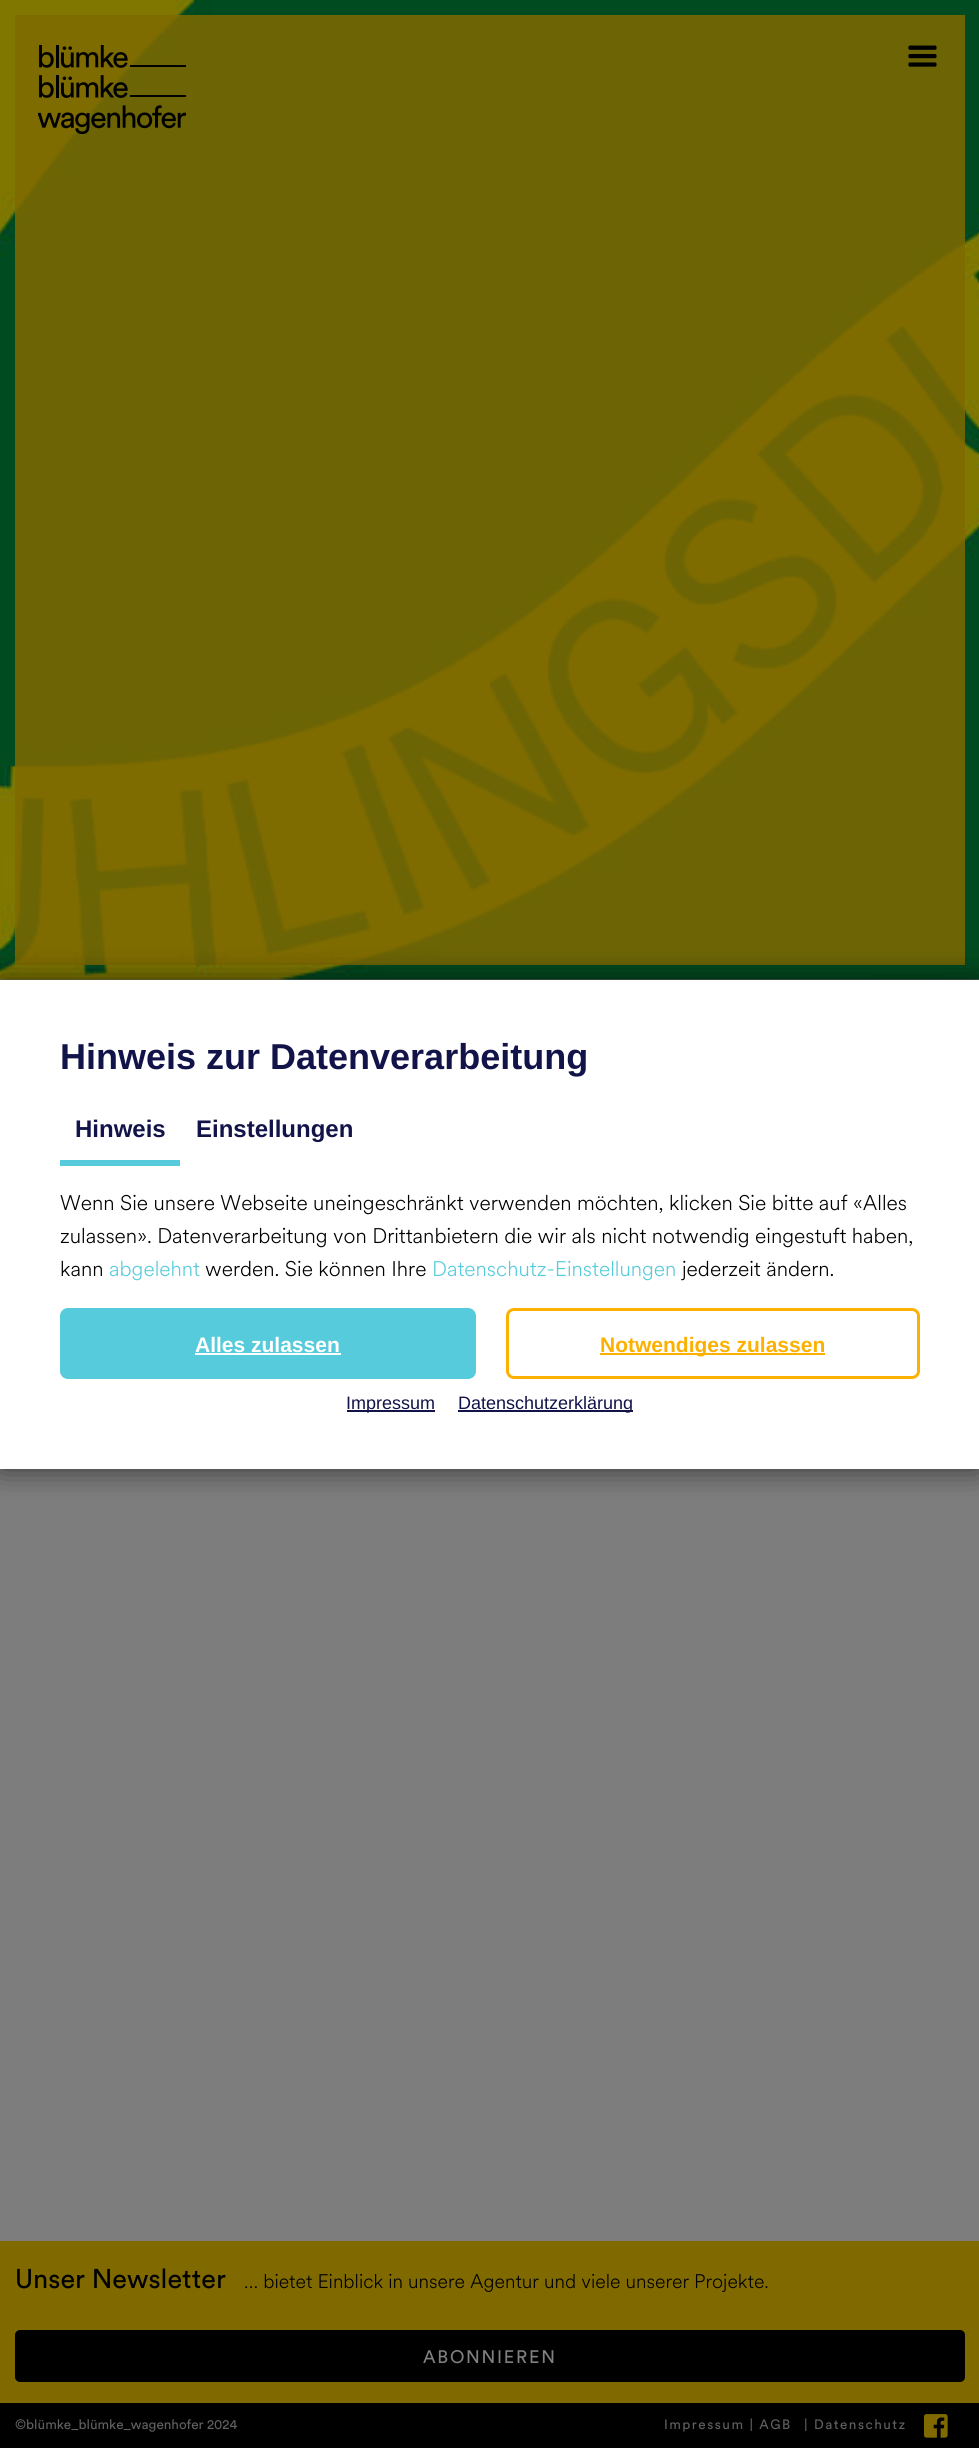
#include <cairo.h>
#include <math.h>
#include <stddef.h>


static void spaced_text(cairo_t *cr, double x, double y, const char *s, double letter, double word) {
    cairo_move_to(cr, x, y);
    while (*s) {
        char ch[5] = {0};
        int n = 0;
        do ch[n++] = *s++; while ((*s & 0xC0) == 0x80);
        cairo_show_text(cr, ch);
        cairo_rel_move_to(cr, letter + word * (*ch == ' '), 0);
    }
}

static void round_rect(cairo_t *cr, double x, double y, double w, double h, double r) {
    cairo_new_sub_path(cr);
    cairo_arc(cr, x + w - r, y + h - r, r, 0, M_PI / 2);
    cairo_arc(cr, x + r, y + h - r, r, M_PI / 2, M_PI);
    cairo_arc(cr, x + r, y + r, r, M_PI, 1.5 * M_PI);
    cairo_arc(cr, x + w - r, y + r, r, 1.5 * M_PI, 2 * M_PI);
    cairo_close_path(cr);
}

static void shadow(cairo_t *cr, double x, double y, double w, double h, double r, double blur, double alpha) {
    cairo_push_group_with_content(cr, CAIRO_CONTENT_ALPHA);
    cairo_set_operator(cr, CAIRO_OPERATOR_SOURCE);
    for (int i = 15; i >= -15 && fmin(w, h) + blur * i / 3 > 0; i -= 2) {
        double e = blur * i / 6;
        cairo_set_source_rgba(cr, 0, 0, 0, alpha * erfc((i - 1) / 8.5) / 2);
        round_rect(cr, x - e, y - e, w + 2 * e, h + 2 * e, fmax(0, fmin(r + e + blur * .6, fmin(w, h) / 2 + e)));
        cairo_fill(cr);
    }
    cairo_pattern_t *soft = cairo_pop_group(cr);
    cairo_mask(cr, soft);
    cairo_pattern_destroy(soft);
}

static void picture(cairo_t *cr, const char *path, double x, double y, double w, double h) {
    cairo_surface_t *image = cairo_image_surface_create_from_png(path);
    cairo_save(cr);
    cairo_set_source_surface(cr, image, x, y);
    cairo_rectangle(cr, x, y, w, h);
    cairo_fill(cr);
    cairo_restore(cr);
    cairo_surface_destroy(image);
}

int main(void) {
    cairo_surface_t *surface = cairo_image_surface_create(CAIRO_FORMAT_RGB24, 979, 2448);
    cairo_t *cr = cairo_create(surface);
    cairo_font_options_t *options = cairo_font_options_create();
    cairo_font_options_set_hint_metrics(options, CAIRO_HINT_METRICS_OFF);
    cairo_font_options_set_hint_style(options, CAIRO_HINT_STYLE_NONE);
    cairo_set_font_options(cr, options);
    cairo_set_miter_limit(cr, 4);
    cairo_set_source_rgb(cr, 0.49, 0.49, 0.49);
    cairo_paint(cr);
    picture(cr, "img1.png", 0, 0, 979, 980);
    cairo_set_source_rgb(cr, 0, 0, 0);
    shadow(cr, 0, 980, 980, 489, 0, 15, 0.6);
    cairo_set_source_rgb(cr, 1, 1, 1);
    cairo_rectangle(cr, 0, 980, 979, 489);
    cairo_fill(cr);
    cairo_select_font_face(cr, "Liberation Sans", CAIRO_FONT_SLANT_NORMAL, CAIRO_FONT_WEIGHT_BOLD);
    cairo_set_font_size(cr, 36);
    cairo_set_source_rgb(cr, 0.071, 0.078, 0.286);
    cairo_move_to(cr, 60, 1069);
    cairo_show_text(cr, "Hinweis zur Datenverarbeitung");
    cairo_set_source_rgb(cr, 0.337, 0.796, 0.859);
    cairo_rectangle(cr, 60, 1160, 120, 6);
    cairo_fill(cr);
    cairo_set_font_size(cr, 24);
    cairo_set_source_rgb(cr, 0.071, 0.078, 0.286);
    cairo_move_to(cr, 75, 1137);
    cairo_show_text(cr, "Hinweis");
    cairo_move_to(cr, 196, 1137);
    cairo_show_text(cr, "Einstellungen");
    cairo_select_font_face(cr, "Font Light", CAIRO_FONT_SLANT_NORMAL, CAIRO_FONT_WEIGHT_NORMAL);
    cairo_set_font_size(cr, 21);
    cairo_set_source_rgb(cr, 0, 0, 0);
    cairo_move_to(cr, 60, 1210);
    cairo_show_text(cr, "Wenn Sie unsere Webseite uneingeschränkt verwenden möchten, klicken Sie bitte auf «Alles");
    cairo_move_to(cr, 60, 1243);
    cairo_show_text(cr, "zulassen». Datenverarbeitung von Drittanbietern die wir als nicht notwendig eingestuft haben,");
    cairo_move_to(cr, 60, 1276);
    cairo_show_text(cr, "kann");
    cairo_set_source_rgb(cr, 0.337, 0.796, 0.859);
    cairo_move_to(cr, 109, 1276);
    cairo_show_text(cr, "abgelehnt");
    cairo_set_source_rgb(cr, 0, 0, 0);
    cairo_move_to(cr, 205, 1276);
    cairo_show_text(cr, "werden. Sie können Ihre");
    cairo_set_source_rgb(cr, 0.337, 0.796, 0.859);
    cairo_move_to(cr, 432, 1276);
    cairo_show_text(cr, "Datenschutz-Einstellungen");
    cairo_set_source_rgb(cr, 0, 0, 0);
    cairo_move_to(cr, 682, 1276);
    cairo_show_text(cr, "jederzeit ändern.");
    cairo_set_source_rgb(cr, 0.337, 0.796, 0.859);
    round_rect(cr, 61.5, 1309.5, 413, 68, 6.5);
    cairo_fill_preserve(cr);
    cairo_set_line_width(cr, 3);
    cairo_stroke(cr);
    cairo_select_font_face(cr, "Liberation Sans", CAIRO_FONT_SLANT_NORMAL, CAIRO_FONT_WEIGHT_BOLD);
    cairo_set_source_rgb(cr, 1, 1, 1);
    cairo_move_to(cr, 195, 1352);
    cairo_show_text(cr, "Alles zulassen");
    cairo_rectangle(cr, 195, 1353, 146, 2);
    cairo_fill(cr);
    round_rect(cr, 507.5, 1309.5, 411, 68, 6.5);
    cairo_set_source_rgb(cr, 0.988, 0.694, 0);
    cairo_stroke(cr);
    cairo_rectangle(cr, 600, 1353, 225, 2);
    cairo_fill(cr);
    cairo_move_to(cr, 600, 1352);
    cairo_show_text(cr, "Notwendiges zulassen");
    cairo_set_source_rgb(cr, 0.071, 0.078, 0.286);
    cairo_rectangle(cr, 347, 1410, 88, 2);
    cairo_fill(cr);
    cairo_select_font_face(cr, "Liberation Sans", CAIRO_FONT_SLANT_NORMAL, CAIRO_FONT_WEIGHT_NORMAL);
    cairo_set_font_size(cr, 18);
    cairo_move_to(cr, 346, 1409);
    cairo_show_text(cr, "Impressum");
    cairo_rectangle(cr, 458, 1410, 175, 2);
    cairo_fill(cr);
    cairo_move_to(cr, 458, 1409);
    cairo_show_text(cr, "Datenschutzerklärung");
    picture(cr, "img2.png", 38, 45, 148, 89);
    picture(cr, "img3.png", 908, 45, 29, 22);
    cairo_set_source_rgb(cr, 0.502, 0.416, 0);
    cairo_rectangle(cr, 0, 2241, 979, 162);
    cairo_fill(cr);
    cairo_select_font_face(cr, "Circular", CAIRO_FONT_SLANT_NORMAL, CAIRO_FONT_WEIGHT_NORMAL);
    cairo_set_font_size(cr, 27);
    cairo_set_source_rgb(cr, 0, 0, 0);
    cairo_move_to(cr, 15, 2288);
    cairo_show_text(cr, "Unser Newsletter");
    cairo_select_font_face(cr, "Font Light", CAIRO_FONT_SLANT_NORMAL, CAIRO_FONT_WEIGHT_NORMAL);
    cairo_set_font_size(cr, 19.5);
    cairo_move_to(cr, 244, 2288);
    cairo_show_text(cr, "… bietet Einblick in unsere Agentur und viele unserer Projekte.");
    round_rect(cr, 15, 2330, 950, 52, 5);
    cairo_fill(cr);
    cairo_select_font_face(cr, "Circular", CAIRO_FONT_SLANT_NORMAL, CAIRO_FONT_WEIGHT_NORMAL);
    cairo_set_font_size(cr, 18);
    cairo_set_source_rgb(cr, 0.502, 0.502, 0.502);
    spaced_text(cr, 423, 2363, "ABONNIEREN", 1.75, 0);
    cairo_set_source_rgb(cr, 0, 0, 0);
    cairo_rectangle(cr, 0, 2403, 979, 45);
    cairo_fill(cr);
    cairo_set_font_size(cr, 13.5);
    cairo_set_source_rgb(cr, 0.376, 0.376, 0.376);
    cairo_move_to(cr, 15, 2429);
    cairo_show_text(cr, "©blümke_blümke_wagenhofer 2024");
    spaced_text(cr, 664, 2429, "Impressum | AGB", 1.5, 0);
    spaced_text(cr, 804, 2429, "| Datenschutz", 1.5, 0);
    picture(cr, "img4.png", 924, 2414, 24, 24);
    cairo_surface_write_to_png(surface, "page.png");
    cairo_font_options_destroy(options);
    cairo_destroy(cr);
    cairo_surface_destroy(surface);
    return 0;
}
